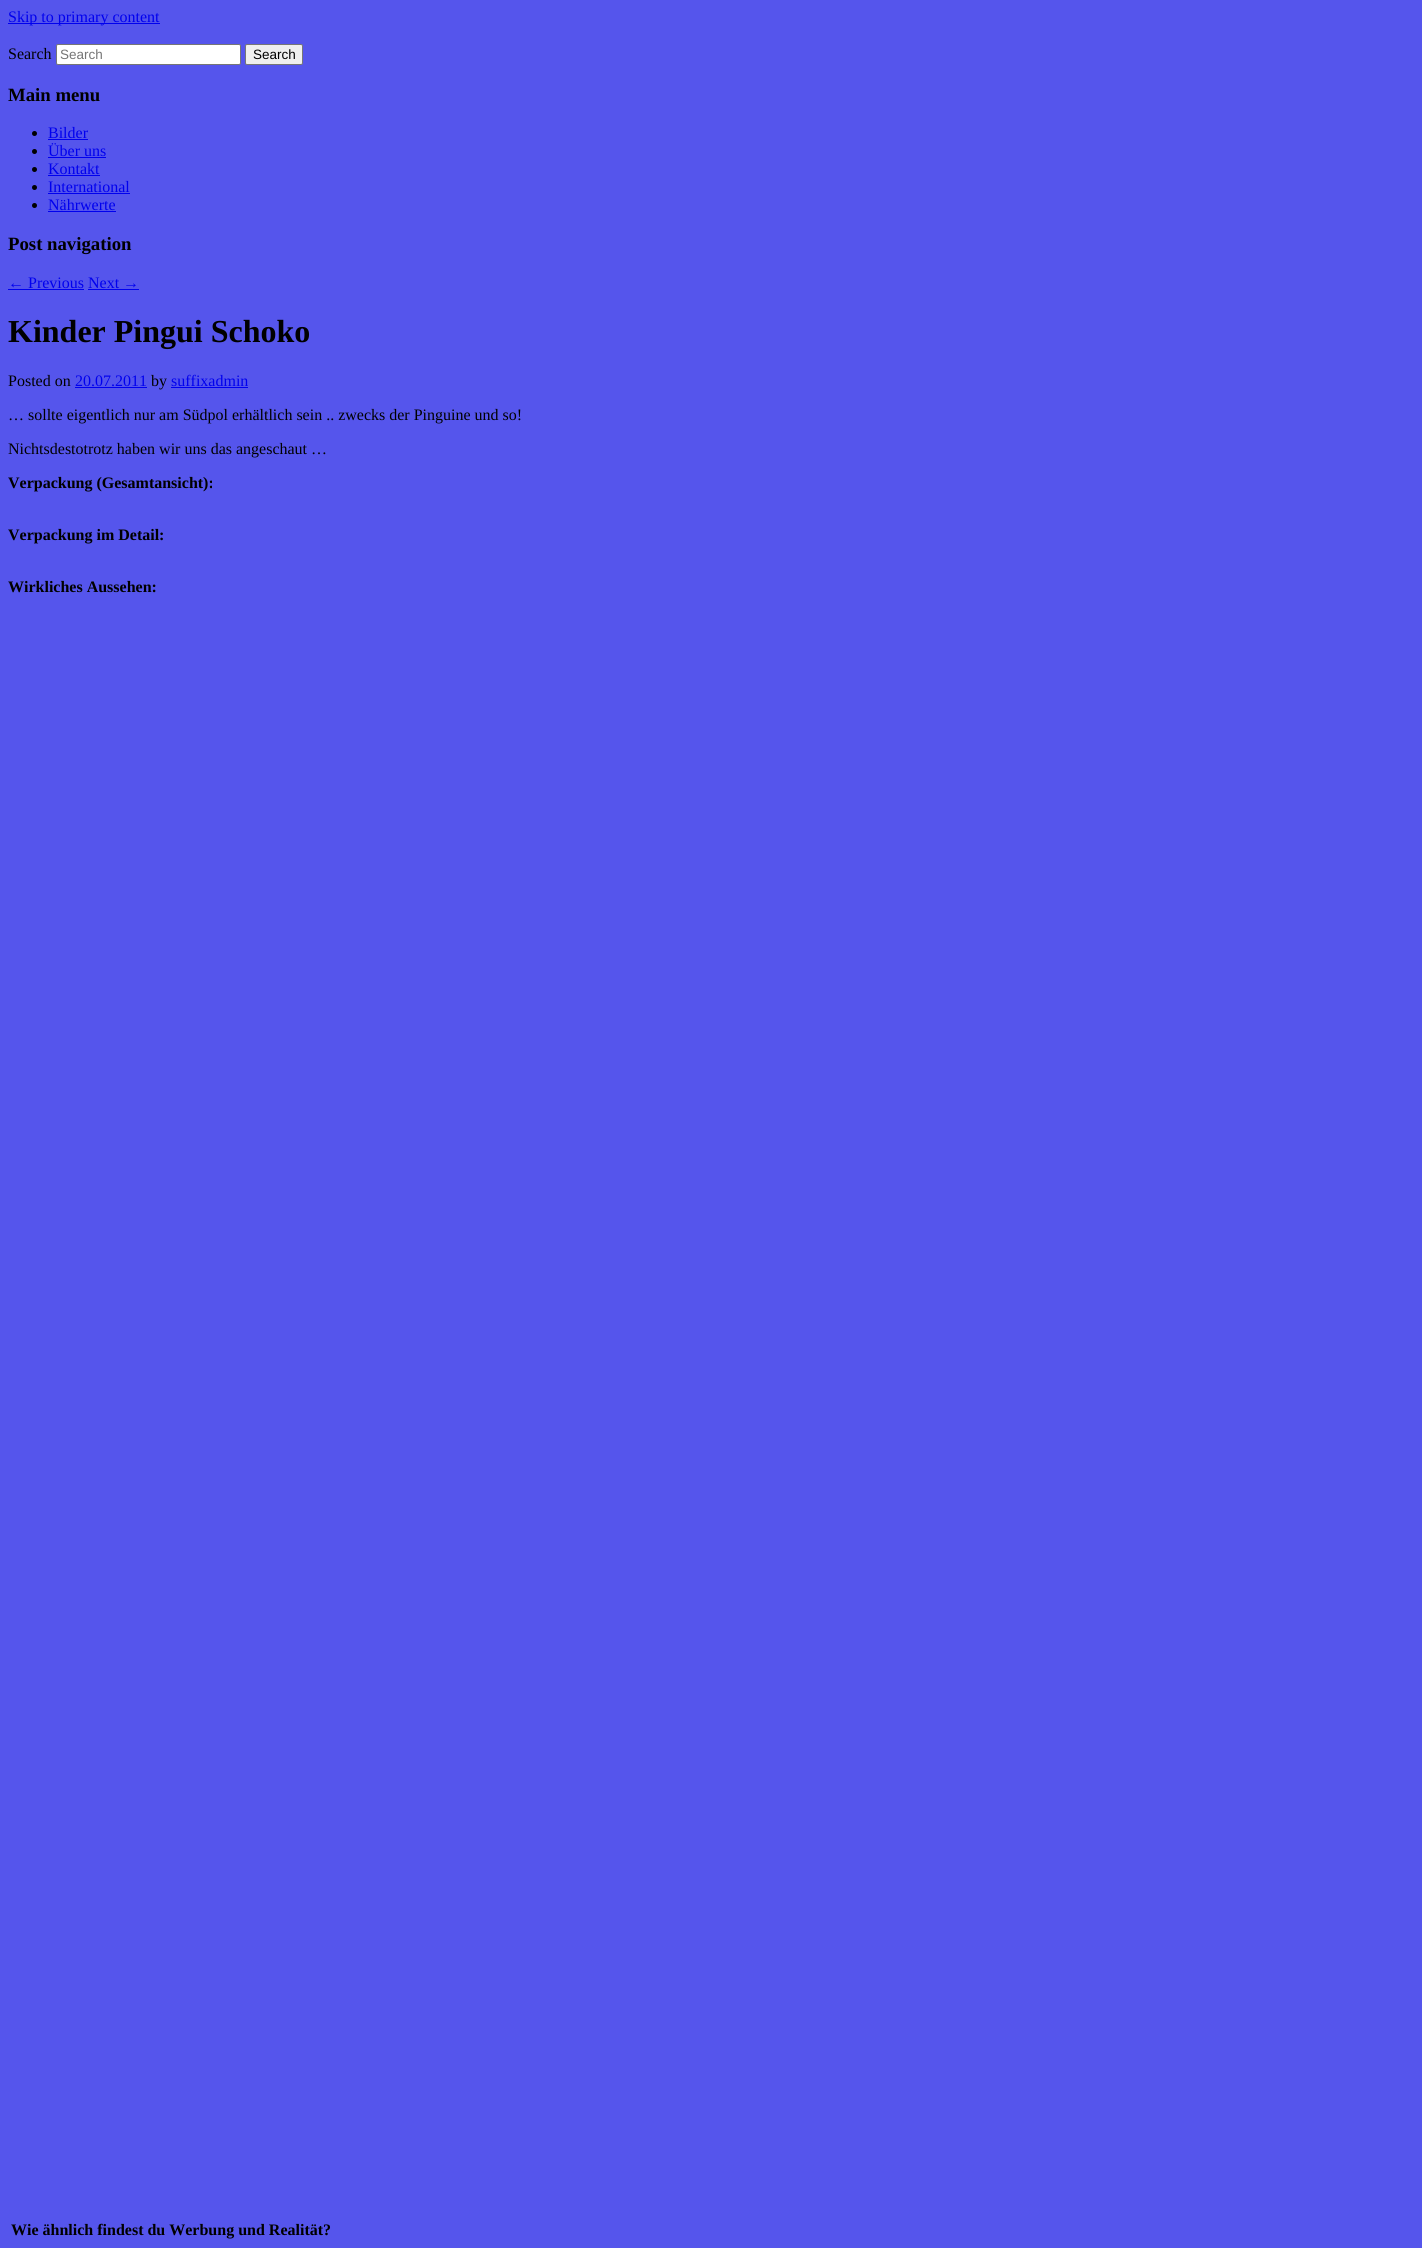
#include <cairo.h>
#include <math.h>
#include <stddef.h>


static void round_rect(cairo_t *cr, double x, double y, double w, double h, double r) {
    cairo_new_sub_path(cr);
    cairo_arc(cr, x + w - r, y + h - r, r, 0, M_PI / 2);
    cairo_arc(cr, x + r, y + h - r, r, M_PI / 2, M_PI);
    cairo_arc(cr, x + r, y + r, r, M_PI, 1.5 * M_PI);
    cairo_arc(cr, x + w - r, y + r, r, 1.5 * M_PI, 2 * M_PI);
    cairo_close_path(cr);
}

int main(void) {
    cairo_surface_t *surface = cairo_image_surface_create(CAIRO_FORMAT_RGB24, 1422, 2248);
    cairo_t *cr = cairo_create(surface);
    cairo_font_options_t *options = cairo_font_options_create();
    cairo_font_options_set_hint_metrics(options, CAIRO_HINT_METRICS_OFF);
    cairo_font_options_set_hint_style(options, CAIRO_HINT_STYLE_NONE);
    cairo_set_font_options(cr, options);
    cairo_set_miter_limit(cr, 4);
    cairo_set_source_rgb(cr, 0.333, 0.333, 0.922);
    cairo_paint(cr);
    cairo_set_source_rgb(cr, 0, 0, 0.933);
    cairo_rectangle(cr, 8, 23, 152, 1);
    cairo_fill(cr);
    cairo_select_font_face(cr, "Liberation Serif", CAIRO_FONT_SLANT_NORMAL, CAIRO_FONT_WEIGHT_NORMAL);
    cairo_set_font_size(cr, 16);
    cairo_move_to(cr, 8, 22);
    cairo_show_text(cr, "Skip to primary content");
    cairo_set_source_rgb(cr, 0, 0, 0);
    cairo_move_to(cr, 8, 59);
    cairo_show_text(cr, "Search");
    cairo_set_source_rgb(cr, 1, 1, 1);
    round_rect(cr, 56.5, 44.5, 184, 20, 1.5);
    cairo_fill_preserve(cr);
    cairo_set_source_rgb(cr, 0.463, 0.463, 0.463);
    cairo_set_line_width(cr, 1);
    cairo_stroke(cr);
    cairo_select_font_face(cr, "Liberation Sans", CAIRO_FONT_SLANT_NORMAL, CAIRO_FONT_WEIGHT_NORMAL);
    cairo_set_font_size(cr, 13.5);
    cairo_set_source_rgb(cr, 0.459, 0.459, 0.459);
    cairo_move_to(cr, 60, 59);
    cairo_show_text(cr, "Search");
    cairo_set_source_rgb(cr, 0.937, 0.937, 0.937);
    round_rect(cr, 245.5, 44.5, 57, 20, 1.5);
    cairo_fill_preserve(cr);
    cairo_set_source_rgb(cr, 0.463, 0.463, 0.463);
    cairo_stroke(cr);
    cairo_set_source_rgb(cr, 0, 0, 0);
    cairo_move_to(cr, 253, 59);
    cairo_show_text(cr, "Search");
    cairo_select_font_face(cr, "Liberation Serif", CAIRO_FONT_SLANT_NORMAL, CAIRO_FONT_WEIGHT_BOLD);
    cairo_set_font_size(cr, 18.75);
    cairo_move_to(cr, 8, 101);
    cairo_show_text(cr, "Main menu");
    cairo_new_path(cr);
    cairo_arc(cr, 34.5, 133.5, 2.5, 0, 2 * M_PI);
    cairo_fill(cr);
    cairo_select_font_face(cr, "Liberation Serif", CAIRO_FONT_SLANT_NORMAL, CAIRO_FONT_WEIGHT_NORMAL);
    cairo_set_font_size(cr, 16);
    cairo_set_source_rgb(cr, 0, 0, 0.933);
    cairo_move_to(cr, 48, 138);
    cairo_show_text(cr, "Bilder");
    cairo_rectangle(cr, 48, 139, 40, 1);
    cairo_fill(cr);
    cairo_set_source_rgb(cr, 0, 0, 0);
    cairo_arc(cr, 34.5, 151.5, 2.5, 0, 2 * M_PI);
    cairo_fill(cr);
    cairo_set_source_rgb(cr, 0, 0, 0.933);
    cairo_move_to(cr, 48, 156);
    cairo_show_text(cr, "Über uns");
    cairo_rectangle(cr, 48, 157, 58, 1);
    cairo_fill(cr);
    cairo_set_source_rgb(cr, 0, 0, 0);
    cairo_arc(cr, 34.5, 169.5, 2.5, 0, 2 * M_PI);
    cairo_fill(cr);
    cairo_set_source_rgb(cr, 0, 0, 0.933);
    cairo_move_to(cr, 48, 174);
    cairo_show_text(cr, "Kontakt");
    cairo_rectangle(cr, 48, 175, 52, 1);
    cairo_fill(cr);
    cairo_set_source_rgb(cr, 0, 0, 0);
    cairo_arc(cr, 34.5, 187.5, 2.5, 0, 2 * M_PI);
    cairo_fill(cr);
    cairo_set_source_rgb(cr, 0, 0, 0.933);
    cairo_move_to(cr, 48, 192);
    cairo_show_text(cr, "International");
    cairo_rectangle(cr, 48, 193, 82, 1);
    cairo_fill(cr);
    cairo_set_source_rgb(cr, 0, 0, 0);
    cairo_arc(cr, 34.5, 205.5, 2.5, 0, 2 * M_PI);
    cairo_fill(cr);
    cairo_set_source_rgb(cr, 0, 0, 0.933);
    cairo_move_to(cr, 48, 210);
    cairo_show_text(cr, "Nährwerte");
    cairo_rectangle(cr, 48, 211, 68, 1);
    cairo_fill(cr);
    cairo_select_font_face(cr, "Liberation Serif", CAIRO_FONT_SLANT_NORMAL, CAIRO_FONT_WEIGHT_BOLD);
    cairo_set_font_size(cr, 18.75);
    cairo_set_source_rgb(cr, 0, 0, 0);
    cairo_move_to(cr, 8, 250);
    cairo_show_text(cr, "Post navigation");
    cairo_select_font_face(cr, "Liberation Serif", CAIRO_FONT_SLANT_NORMAL, CAIRO_FONT_WEIGHT_NORMAL);
    cairo_set_font_size(cr, 16);
    cairo_set_source_rgb(cr, 0, 0, 0.933);
    cairo_move_to(cr, 8, 288);
    cairo_show_text(cr, "← Previous Next →");
    cairo_rectangle(cr, 8, 289, 76, 1);
    cairo_fill(cr);
    cairo_rectangle(cr, 88, 289, 51, 1);
    cairo_fill(cr);
    cairo_select_font_face(cr, "Liberation Serif", CAIRO_FONT_SLANT_NORMAL, CAIRO_FONT_WEIGHT_BOLD);
    cairo_set_font_size(cr, 32);
    cairo_set_source_rgb(cr, 0, 0, 0);
    cairo_move_to(cr, 8, 342);
    cairo_show_text(cr, "Kinder Pingui Schoko");
    cairo_select_font_face(cr, "Liberation Serif", CAIRO_FONT_SLANT_NORMAL, CAIRO_FONT_WEIGHT_NORMAL);
    cairo_set_font_size(cr, 16);
    cairo_move_to(cr, 8, 386);
    cairo_show_text(cr, "Posted on");
    cairo_set_source_rgb(cr, 0, 0, 0.933);
    cairo_move_to(cr, 75, 386);
    cairo_show_text(cr, "20.07.2011");
    cairo_rectangle(cr, 75, 387, 72, 1);
    cairo_fill(cr);
    cairo_set_source_rgb(cr, 0, 0, 0);
    cairo_move_to(cr, 151, 386);
    cairo_show_text(cr, "by");
    cairo_set_source_rgb(cr, 0, 0, 0.933);
    cairo_move_to(cr, 171, 386);
    cairo_show_text(cr, "suffixadmin");
    cairo_rectangle(cr, 171, 387, 77, 1);
    cairo_fill(cr);
    cairo_set_source_rgb(cr, 0, 0, 0);
    cairo_move_to(cr, 8, 420);
    cairo_show_text(cr, "… sollte eigentlich nur am Südpol erhältlich sein .. zwecks der Pinguine und so!");
    cairo_move_to(cr, 8, 454);
    cairo_show_text(cr, "Nichtsdestotrotz haben wir uns das angeschaut …");
    cairo_select_font_face(cr, "Liberation Serif", CAIRO_FONT_SLANT_NORMAL, CAIRO_FONT_WEIGHT_BOLD);
    cairo_move_to(cr, 8, 488);
    cairo_show_text(cr, "Verpackung (Gesamtansicht):");
    cairo_move_to(cr, 8, 540);
    cairo_show_text(cr, "Verpackung im Detail:");
    cairo_move_to(cr, 8, 592);
    cairo_show_text(cr, "Wirkliches Aussehen:");
    cairo_move_to(cr, 11, 2235);
    cairo_show_text(cr, "Wie ähnlich findest du Werbung und Realität?");
    cairo_surface_write_to_png(surface, "page.png");
    cairo_font_options_destroy(options);
    cairo_destroy(cr);
    cairo_surface_destroy(surface);
    return 0;
}
